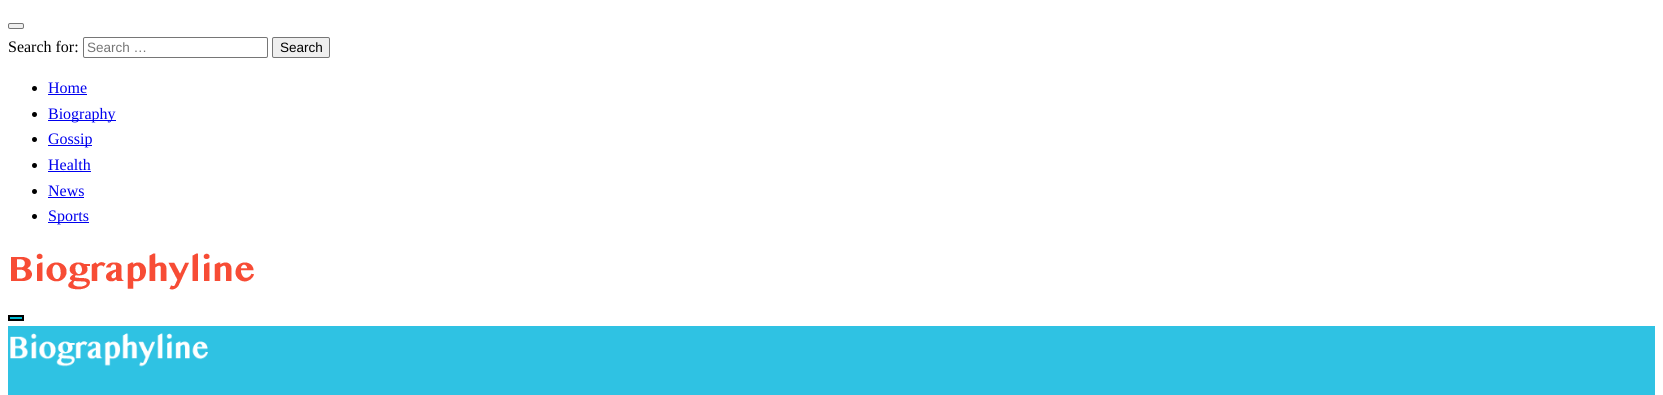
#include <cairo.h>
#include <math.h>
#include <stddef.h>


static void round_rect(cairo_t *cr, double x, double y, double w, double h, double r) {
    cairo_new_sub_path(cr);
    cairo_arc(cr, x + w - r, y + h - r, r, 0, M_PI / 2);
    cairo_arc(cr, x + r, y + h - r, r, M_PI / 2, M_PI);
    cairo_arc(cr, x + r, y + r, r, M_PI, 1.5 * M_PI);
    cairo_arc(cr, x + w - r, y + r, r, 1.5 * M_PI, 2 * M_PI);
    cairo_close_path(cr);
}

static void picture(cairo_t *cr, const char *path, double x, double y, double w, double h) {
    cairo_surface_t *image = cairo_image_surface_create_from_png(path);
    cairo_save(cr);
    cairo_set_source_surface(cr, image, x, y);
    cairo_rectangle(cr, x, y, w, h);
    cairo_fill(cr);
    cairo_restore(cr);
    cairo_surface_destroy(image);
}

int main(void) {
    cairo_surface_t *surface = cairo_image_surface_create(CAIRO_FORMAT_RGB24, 1663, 395);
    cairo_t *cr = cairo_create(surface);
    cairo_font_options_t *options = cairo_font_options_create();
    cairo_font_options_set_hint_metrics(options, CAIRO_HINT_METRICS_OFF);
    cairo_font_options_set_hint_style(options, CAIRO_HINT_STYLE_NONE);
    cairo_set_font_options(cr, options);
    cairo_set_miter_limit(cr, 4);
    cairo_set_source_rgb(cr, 1, 1, 1);
    cairo_paint(cr);
    cairo_set_source_rgb(cr, 0.937, 0.937, 0.937);
    round_rect(cr, 8.5, 23.5, 15, 5, 1.5);
    cairo_fill_preserve(cr);
    cairo_set_source_rgb(cr, 0.463, 0.463, 0.463);
    cairo_set_line_width(cr, 1);
    cairo_stroke(cr);
    cairo_select_font_face(cr, "Liberation Serif", CAIRO_FONT_SLANT_NORMAL, CAIRO_FONT_WEIGHT_NORMAL);
    cairo_set_font_size(cr, 16);
    cairo_set_source_rgb(cr, 0, 0, 0);
    cairo_move_to(cr, 8, 52);
    cairo_show_text(cr, "Search for:");
    round_rect(cr, 83.5, 37.5, 184, 20, 1.5);
    cairo_set_source_rgb(cr, 0.463, 0.463, 0.463);
    cairo_stroke(cr);
    cairo_select_font_face(cr, "Liberation Sans", CAIRO_FONT_SLANT_NORMAL, CAIRO_FONT_WEIGHT_NORMAL);
    cairo_set_font_size(cr, 13.5);
    cairo_set_source_rgb(cr, 0.459, 0.459, 0.459);
    cairo_move_to(cr, 87, 52);
    cairo_show_text(cr, "Search …");
    cairo_set_source_rgb(cr, 0.937, 0.937, 0.937);
    round_rect(cr, 272.5, 37.5, 57, 20, 1.5);
    cairo_fill_preserve(cr);
    cairo_set_source_rgb(cr, 0.463, 0.463, 0.463);
    cairo_stroke(cr);
    cairo_set_source_rgb(cr, 0, 0, 0);
    cairo_move_to(cr, 280, 52);
    cairo_show_text(cr, "Search");
    cairo_new_path(cr);
    cairo_arc(cr, 34.5, 88.5, 2.5, 0, 2 * M_PI);
    cairo_fill(cr);
    cairo_select_font_face(cr, "Liberation Serif", CAIRO_FONT_SLANT_NORMAL, CAIRO_FONT_WEIGHT_NORMAL);
    cairo_set_font_size(cr, 16);
    cairo_set_source_rgb(cr, 0, 0, 0.933);
    cairo_move_to(cr, 48, 93);
    cairo_show_text(cr, "Home");
    cairo_rectangle(cr, 48, 94, 39, 1);
    cairo_fill(cr);
    cairo_set_source_rgb(cr, 0, 0, 0);
    cairo_arc(cr, 34.5, 114.5, 2.5, 0, 2 * M_PI);
    cairo_fill(cr);
    cairo_set_source_rgb(cr, 0, 0, 0.933);
    cairo_rectangle(cr, 48, 120, 68, 1);
    cairo_fill(cr);
    cairo_move_to(cr, 48, 119);
    cairo_show_text(cr, "Biography");
    cairo_set_source_rgb(cr, 0, 0, 0);
    cairo_new_path(cr);
    cairo_arc(cr, 34.5, 139.5, 2.5, 0, 2 * M_PI);
    cairo_fill(cr);
    cairo_set_source_rgb(cr, 0, 0, 0.933);
    cairo_rectangle(cr, 48, 145, 44, 1);
    cairo_fill(cr);
    cairo_move_to(cr, 48, 144);
    cairo_show_text(cr, "Gossip");
    cairo_set_source_rgb(cr, 0, 0, 0);
    cairo_new_path(cr);
    cairo_arc(cr, 34.5, 165.5, 2.5, 0, 2 * M_PI);
    cairo_fill(cr);
    cairo_set_source_rgb(cr, 0, 0, 0.933);
    cairo_move_to(cr, 48, 170);
    cairo_show_text(cr, "Health");
    cairo_rectangle(cr, 48, 171, 43, 1);
    cairo_fill(cr);
    cairo_set_source_rgb(cr, 0, 0, 0);
    cairo_arc(cr, 34.5, 191.5, 2.5, 0, 2 * M_PI);
    cairo_fill(cr);
    cairo_set_source_rgb(cr, 0, 0, 0.933);
    cairo_move_to(cr, 48, 196);
    cairo_show_text(cr, "News");
    cairo_rectangle(cr, 48, 197, 36, 1);
    cairo_fill(cr);
    cairo_set_source_rgb(cr, 0, 0, 0);
    cairo_arc(cr, 34.5, 216.5, 2.5, 0, 2 * M_PI);
    cairo_fill(cr);
    cairo_set_source_rgb(cr, 0, 0, 0.933);
    cairo_rectangle(cr, 48, 222, 41, 1);
    cairo_fill(cr);
    cairo_move_to(cr, 48, 221);
    cairo_show_text(cr, "Sports");
    picture(cr, "img1.png", 11, 253, 243, 37);
    cairo_set_source_rgb(cr, 0, 0.737, 0.831);
    cairo_rectangle(cr, 9, 316, 14, 4);
    cairo_fill_preserve(cr);
    cairo_set_source_rgb(cr, 0, 0, 0);
    cairo_set_line_width(cr, 2);
    cairo_stroke(cr);
    cairo_set_source_rgb(cr, 0.184, 0.761, 0.89);
    cairo_rectangle(cr, 8, 326, 1647, 69);
    cairo_fill(cr);
    picture(cr, "img2.png", 10, 333, 198, 34);
    cairo_surface_write_to_png(surface, "page.png");
    cairo_font_options_destroy(options);
    cairo_destroy(cr);
    cairo_surface_destroy(surface);
    return 0;
}
